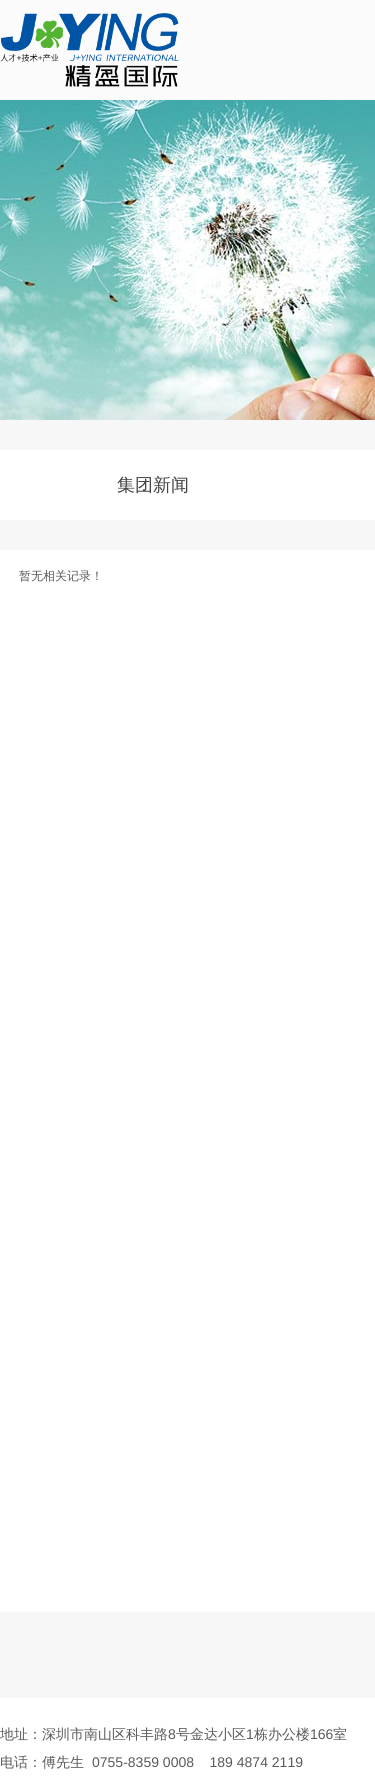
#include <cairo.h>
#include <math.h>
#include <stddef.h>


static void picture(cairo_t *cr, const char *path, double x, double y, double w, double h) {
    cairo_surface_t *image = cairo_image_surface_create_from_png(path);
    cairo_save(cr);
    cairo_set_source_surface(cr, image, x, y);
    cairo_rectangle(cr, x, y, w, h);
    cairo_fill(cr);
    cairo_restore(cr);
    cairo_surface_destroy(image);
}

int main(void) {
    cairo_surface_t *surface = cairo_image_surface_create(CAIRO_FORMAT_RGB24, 375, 1778);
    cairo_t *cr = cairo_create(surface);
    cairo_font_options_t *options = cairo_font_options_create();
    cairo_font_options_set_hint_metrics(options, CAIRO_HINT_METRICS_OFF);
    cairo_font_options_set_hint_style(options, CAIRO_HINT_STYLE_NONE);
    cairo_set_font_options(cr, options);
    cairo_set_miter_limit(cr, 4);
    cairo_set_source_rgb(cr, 0.965, 0.965, 0.965);
    cairo_paint(cr);
    cairo_set_source_rgb(cr, 0.984, 0.984, 0.984);
    cairo_rectangle(cr, 0, 0, 375, 100);
    cairo_fill(cr);
    picture(cr, "img1.png", 0, 13, 179, 74);
    picture(cr, "img2.png", 0, 100, 375, 320);
    cairo_set_source_rgb(cr, 1, 1, 1);
    cairo_rectangle(cr, 0, 450, 375, 70);
    cairo_fill(cr);
    cairo_select_font_face(cr, "WenQuanYi Zen Hei Medium", CAIRO_FONT_SLANT_NORMAL, CAIRO_FONT_WEIGHT_NORMAL);
    cairo_set_font_size(cr, 18);
    cairo_set_source_rgb(cr, 0.263, 0.263, 0.263);
    cairo_move_to(cr, 117, 491);
    cairo_show_text(cr, "集团新闻");
    cairo_set_source_rgb(cr, 1, 1, 1);
    cairo_rectangle(cr, 0, 550, 375, 1062);
    cairo_fill(cr);
    cairo_set_font_size(cr, 12);
    cairo_set_source_rgb(cr, 0.353, 0.353, 0.353);
    cairo_move_to(cr, 19, 580);
    cairo_show_text(cr, "暂无相关记录！");
    cairo_set_source_rgb(cr, 1, 1, 1);
    cairo_rectangle(cr, 0, 1698, 375, 80);
    cairo_fill(cr);
    cairo_set_font_size(cr, 14);
    cairo_set_source_rgb(cr, 0.353, 0.353, 0.353);
    cairo_move_to(cr, 0, 1739);
    cairo_show_text(cr, "地址：深圳市南山区科丰路");
    cairo_select_font_face(cr, "Liberation Sans", CAIRO_FONT_SLANT_NORMAL, CAIRO_FONT_WEIGHT_NORMAL);
    cairo_move_to(cr, 168, 1739);
    cairo_show_text(cr, "8");
    cairo_select_font_face(cr, "WenQuanYi Zen Hei Medium", CAIRO_FONT_SLANT_NORMAL, CAIRO_FONT_WEIGHT_NORMAL);
    cairo_move_to(cr, 176, 1739);
    cairo_show_text(cr, "号金达小区");
    cairo_select_font_face(cr, "Liberation Sans", CAIRO_FONT_SLANT_NORMAL, CAIRO_FONT_WEIGHT_NORMAL);
    cairo_move_to(cr, 246, 1739);
    cairo_show_text(cr, "1");
    cairo_select_font_face(cr, "WenQuanYi Zen Hei Medium", CAIRO_FONT_SLANT_NORMAL, CAIRO_FONT_WEIGHT_NORMAL);
    cairo_move_to(cr, 254, 1739);
    cairo_show_text(cr, "栋办公楼");
    cairo_select_font_face(cr, "Liberation Sans", CAIRO_FONT_SLANT_NORMAL, CAIRO_FONT_WEIGHT_NORMAL);
    cairo_move_to(cr, 310, 1739);
    cairo_show_text(cr, "166");
    cairo_select_font_face(cr, "WenQuanYi Zen Hei Medium", CAIRO_FONT_SLANT_NORMAL, CAIRO_FONT_WEIGHT_NORMAL);
    cairo_move_to(cr, 333, 1739);
    cairo_show_text(cr, "室");
    cairo_move_to(cr, 0, 1767);
    cairo_show_text(cr, "电话：傅先生");
    cairo_select_font_face(cr, "Liberation Sans", CAIRO_FONT_SLANT_NORMAL, CAIRO_FONT_WEIGHT_NORMAL);
    cairo_move_to(cr, 92, 1767);
    cairo_show_text(cr, "0755-8359 0008    189 4874 2119");
    cairo_surface_write_to_png(surface, "page.png");
    cairo_font_options_destroy(options);
    cairo_destroy(cr);
    cairo_surface_destroy(surface);
    return 0;
}
